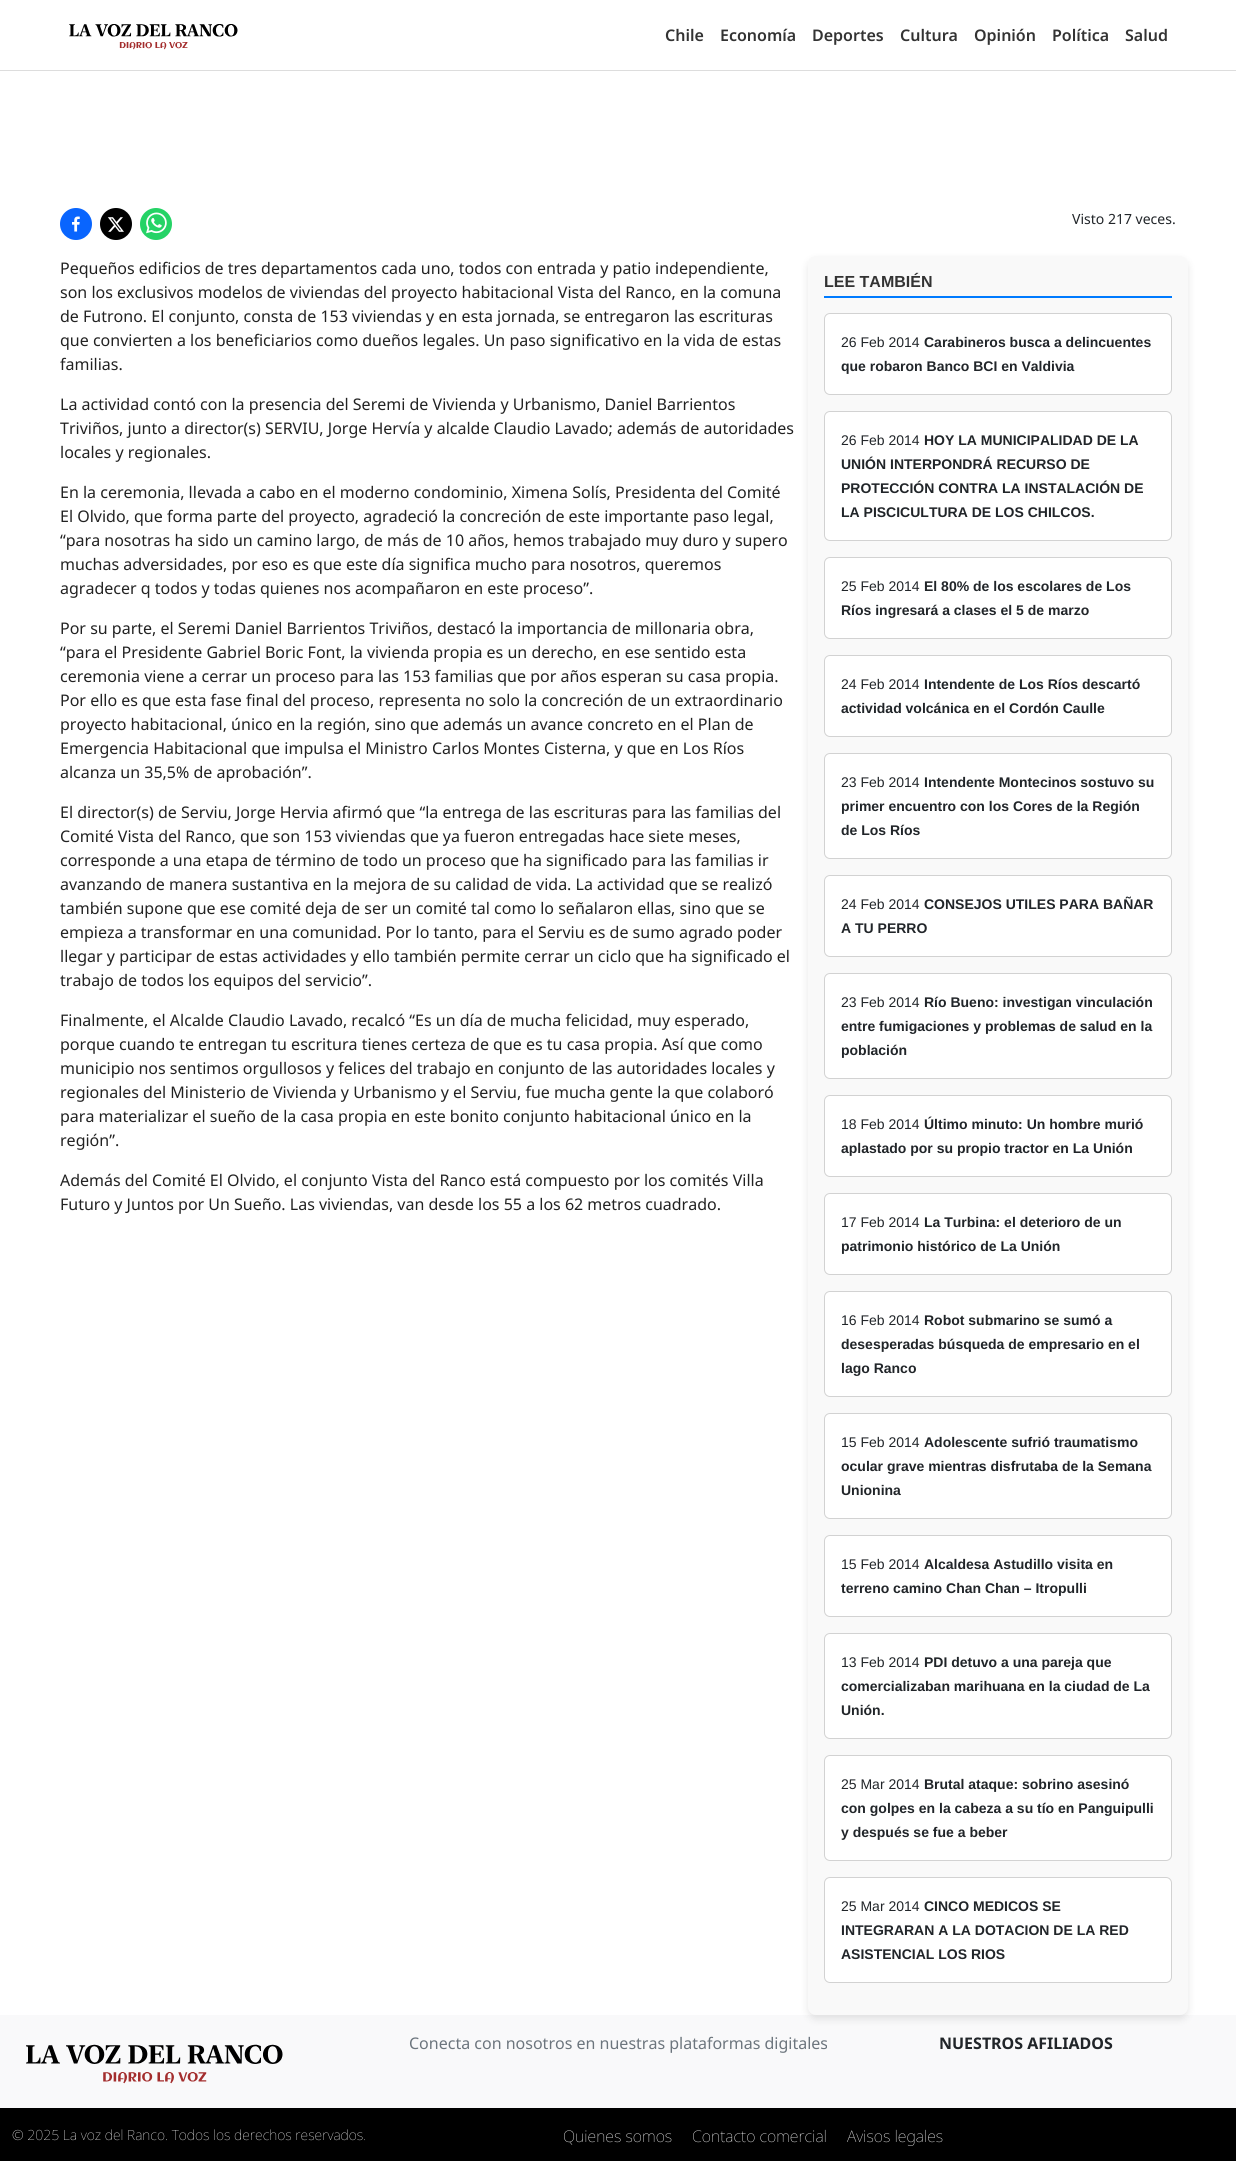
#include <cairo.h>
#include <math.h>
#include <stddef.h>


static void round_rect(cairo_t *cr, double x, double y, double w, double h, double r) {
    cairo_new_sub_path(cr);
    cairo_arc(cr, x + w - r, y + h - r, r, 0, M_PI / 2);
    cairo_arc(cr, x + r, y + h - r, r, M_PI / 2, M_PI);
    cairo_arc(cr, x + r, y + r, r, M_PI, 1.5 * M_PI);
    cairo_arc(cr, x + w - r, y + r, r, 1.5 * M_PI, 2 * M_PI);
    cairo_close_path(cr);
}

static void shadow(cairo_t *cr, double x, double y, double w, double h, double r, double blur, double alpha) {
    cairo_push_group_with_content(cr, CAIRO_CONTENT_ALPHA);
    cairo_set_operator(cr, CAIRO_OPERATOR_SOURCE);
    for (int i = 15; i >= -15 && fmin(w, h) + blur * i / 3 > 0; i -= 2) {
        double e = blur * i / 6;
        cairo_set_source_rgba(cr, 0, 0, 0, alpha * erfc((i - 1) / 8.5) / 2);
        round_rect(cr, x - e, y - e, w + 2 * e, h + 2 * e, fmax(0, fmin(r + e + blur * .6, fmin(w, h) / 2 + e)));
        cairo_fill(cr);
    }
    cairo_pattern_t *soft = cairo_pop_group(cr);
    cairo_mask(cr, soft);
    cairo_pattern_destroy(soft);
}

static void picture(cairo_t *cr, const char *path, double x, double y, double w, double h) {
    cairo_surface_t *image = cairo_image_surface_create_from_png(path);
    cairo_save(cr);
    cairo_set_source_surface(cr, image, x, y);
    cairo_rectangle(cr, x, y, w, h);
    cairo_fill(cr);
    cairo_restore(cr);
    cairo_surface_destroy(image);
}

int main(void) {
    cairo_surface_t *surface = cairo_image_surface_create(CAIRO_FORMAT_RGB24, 1236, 2161);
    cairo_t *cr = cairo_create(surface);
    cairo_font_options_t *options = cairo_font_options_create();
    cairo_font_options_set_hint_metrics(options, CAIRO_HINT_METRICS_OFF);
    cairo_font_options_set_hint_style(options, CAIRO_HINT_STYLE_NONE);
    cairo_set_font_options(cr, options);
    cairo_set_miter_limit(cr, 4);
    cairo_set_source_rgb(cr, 1, 1, 1);
    cairo_paint(cr);
    cairo_set_source_rgb(cr, 0.867, 0.867, 0.867);
    cairo_rectangle(cr, 0, 70, 1236, 1);
    cairo_fill(cr);
    picture(cr, "img1.png", 69, 24, 169, 26);
    cairo_select_font_face(cr, "Noto Sans SemiBold", CAIRO_FONT_SLANT_NORMAL, CAIRO_FONT_WEIGHT_NORMAL);
    cairo_set_font_size(cr, 16);
    cairo_set_source_rgb(cr, 0.2, 0.2, 0.2);
    cairo_move_to(cr, 665, 41);
    cairo_show_text(cr, "Chile");
    cairo_move_to(cr, 720, 41);
    cairo_show_text(cr, "Economía");
    cairo_move_to(cr, 812, 41);
    cairo_show_text(cr, "Deportes");
    cairo_move_to(cr, 900, 41);
    cairo_show_text(cr, "Cultura");
    cairo_move_to(cr, 974, 41);
    cairo_show_text(cr, "Opinión");
    cairo_move_to(cr, 1052, 41);
    cairo_show_text(cr, "Política");
    cairo_move_to(cr, 1125, 41);
    cairo_show_text(cr, "Salud");
    picture(cr, "img2.png", 60, 208, 32, 32);
    picture(cr, "img3.png", 100, 208, 32, 32);
    picture(cr, "img4.png", 140, 208, 32, 32);
    cairo_select_font_face(cr, "Noto Sans", CAIRO_FONT_SLANT_NORMAL, CAIRO_FONT_WEIGHT_NORMAL);
    cairo_set_font_size(cr, 14);
    cairo_set_source_rgb(cr, 0.129, 0.145, 0.161);
    cairo_move_to(cr, 1072, 224);
    cairo_show_text(cr, "Visto 217 veces.");
    cairo_set_font_size(cr, 16);
    cairo_set_source_rgb(cr, 0.133, 0.133, 0.133);
    cairo_move_to(cr, 60, 274);
    cairo_show_text(cr, "Pequeños edificios de tres departamentos cada uno, todos con entrada y patio independiente,");
    cairo_move_to(cr, 60, 298);
    cairo_show_text(cr, "son los exclusivos modelos de viviendas del proyecto habitacional Vista del Ranco, en la comuna");
    cairo_move_to(cr, 60, 322);
    cairo_show_text(cr, "de Futrono. El conjunto, consta de 153 viviendas y en esta jornada, se entregaron las escrituras");
    cairo_move_to(cr, 60, 346);
    cairo_show_text(cr, "que convierten a los beneficiarios como dueños legales. Un paso significativo en la vida de estas");
    cairo_move_to(cr, 60, 370);
    cairo_show_text(cr, "familias.");
    cairo_move_to(cr, 60, 410);
    cairo_show_text(cr, "La actividad contó con la presencia del Seremi de Vivienda y Urbanismo, Daniel Barrientos");
    cairo_move_to(cr, 60, 434);
    cairo_show_text(cr, "Triviños, junto a director(s) SERVIU, Jorge Hervía y alcalde Claudio Lavado; además de autoridades");
    cairo_move_to(cr, 60, 458);
    cairo_show_text(cr, "locales y regionales.");
    cairo_move_to(cr, 60, 498);
    cairo_show_text(cr, "En la ceremonia, llevada a cabo en el moderno condominio, Ximena Solís, Presidenta del Comité");
    cairo_move_to(cr, 60, 522);
    cairo_show_text(cr, "El Olvido, que forma parte del proyecto, agradeció la concreción de este importante paso legal,");
    cairo_move_to(cr, 60, 546);
    cairo_show_text(cr, "“para nosotras ha sido un camino largo, de más de 10 años, hemos trabajado muy duro y supero");
    cairo_move_to(cr, 60, 570);
    cairo_show_text(cr, "muchas adversidades, por eso es que este día significa mucho para nosotros, queremos");
    cairo_move_to(cr, 60, 594);
    cairo_show_text(cr, "agradecer q todos y todas quienes nos acompañaron en este proceso”.");
    cairo_move_to(cr, 60, 634);
    cairo_show_text(cr, "Por su parte, el Seremi Daniel Barrientos Triviños, destacó la importancia de millonaria obra,");
    cairo_move_to(cr, 60, 658);
    cairo_show_text(cr, "“para el Presidente Gabriel Boric Font, la vivienda propia es un derecho, en ese sentido esta");
    cairo_move_to(cr, 60, 682);
    cairo_show_text(cr, "ceremonia viene a cerrar un proceso para las 153 familias que por años esperan su casa propia.");
    cairo_move_to(cr, 60, 706);
    cairo_show_text(cr, "Por ello es que esta fase final del proceso, representa no solo la concreción de un extraordinario");
    cairo_move_to(cr, 60, 730);
    cairo_show_text(cr, "proyecto habitacional, único en la región, sino que además un avance concreto en el Plan de");
    cairo_move_to(cr, 60, 754);
    cairo_show_text(cr, "Emergencia Habitacional que impulsa el Ministro Carlos Montes Cisterna, y que en Los Ríos");
    cairo_move_to(cr, 60, 778);
    cairo_show_text(cr, "alcanza un 35,5% de aprobación”.");
    cairo_move_to(cr, 60, 818);
    cairo_show_text(cr, "El director(s) de Serviu, Jorge Hervia afirmó que “la entrega de las escrituras para las familias del");
    cairo_move_to(cr, 60, 842);
    cairo_show_text(cr, "Comité Vista del Ranco, que son 153 viviendas que ya fueron entregadas hace siete meses,");
    cairo_move_to(cr, 60, 866);
    cairo_show_text(cr, "corresponde a una etapa de término de todo un proceso que ha significado para las familias ir");
    cairo_move_to(cr, 60, 890);
    cairo_show_text(cr, "avanzando de manera sustantiva en la mejora de su calidad de vida. La actividad que se realizó");
    cairo_move_to(cr, 60, 914);
    cairo_show_text(cr, "también supone que ese comité deja de ser un comité tal como lo señalaron ellas, sino que se");
    cairo_move_to(cr, 60, 938);
    cairo_show_text(cr, "empieza a transformar en una comunidad. Por lo tanto, para el Serviu es de sumo agrado poder");
    cairo_move_to(cr, 60, 962);
    cairo_show_text(cr, "llegar y participar de estas actividades y ello también permite cerrar un ciclo que ha significado el");
    cairo_move_to(cr, 60, 986);
    cairo_show_text(cr, "trabajo de todos los equipos del servicio”.");
    cairo_move_to(cr, 60, 1026);
    cairo_show_text(cr, "Finalmente, el Alcalde Claudio Lavado, recalcó “Es un día de mucha felicidad, muy esperado,");
    cairo_move_to(cr, 60, 1050);
    cairo_show_text(cr, "porque cuando te entregan tu escritura tienes certeza de que es tu casa propia. Así que como");
    cairo_move_to(cr, 60, 1074);
    cairo_show_text(cr, "municipio nos sentimos orgullosos y felices del trabajo en conjunto de las autoridades locales y");
    cairo_move_to(cr, 60, 1098);
    cairo_show_text(cr, "regionales del Ministerio de Vivienda y Urbanismo y el Serviu, fue mucha gente la que colaboró");
    cairo_move_to(cr, 60, 1122);
    cairo_show_text(cr, "para materializar el sueño de la casa propia en este bonito conjunto habitacional único en la");
    cairo_move_to(cr, 60, 1146);
    cairo_show_text(cr, "región”.");
    cairo_move_to(cr, 60, 1186);
    cairo_show_text(cr, "Además del Comité El Olvido, el conjunto Vista del Ranco está compuesto por los comités Villa");
    cairo_move_to(cr, 60, 1210);
    cairo_show_text(cr, "Futuro y Juntos por Un Sueño. Las viviendas, van desde los 55 a los 62 metros cuadrado.");
    cairo_set_source_rgb(cr, 0.973, 0.976, 0.98);
    cairo_rectangle(cr, 0, 2015, 1236, 93);
    cairo_fill(cr);
    cairo_set_source_rgb(cr, 0, 0, 0);
    shadow(cr, 808, 260, 380, 1759, 8, 4, 0.1);
    cairo_set_source_rgb(cr, 0.976, 0.976, 0.976);
    round_rect(cr, 808, 256, 380, 1759, 8);
    cairo_fill(cr);
    cairo_set_source_rgb(cr, 0, 0.482, 1);
    cairo_rectangle(cr, 824, 296, 348, 2);
    cairo_fill(cr);
    cairo_select_font_face(cr, "Liberation Sans", CAIRO_FONT_SLANT_NORMAL, CAIRO_FONT_WEIGHT_BOLD);
    cairo_set_source_rgb(cr, 0.2, 0.2, 0.2);
    cairo_move_to(cr, 824, 287);
    cairo_show_text(cr, "LEE TAMBIÉN");
    cairo_set_source_rgb(cr, 1, 1, 1);
    round_rect(cr, 824.5, 313.5, 347, 81, 5.5);
    cairo_fill_preserve(cr);
    cairo_set_source_rgb(cr, 0.824, 0.824, 0.824);
    cairo_set_line_width(cr, 1);
    cairo_stroke(cr);
    cairo_select_font_face(cr, "Liberation Sans", CAIRO_FONT_SLANT_NORMAL, CAIRO_FONT_WEIGHT_NORMAL);
    cairo_set_font_size(cr, 14);
    cairo_set_source_rgb(cr, 0.129, 0.145, 0.161);
    cairo_move_to(cr, 841, 347);
    cairo_show_text(cr, "26 Feb 2014");
    cairo_select_font_face(cr, "Liberation Sans", CAIRO_FONT_SLANT_NORMAL, CAIRO_FONT_WEIGHT_BOLD);
    cairo_move_to(cr, 924, 347);
    cairo_show_text(cr, "Carabineros busca a delincuentes");
    cairo_move_to(cr, 841, 371);
    cairo_show_text(cr, "que robaron Banco BCI en Valdivia");
    cairo_set_source_rgb(cr, 1, 1, 1);
    round_rect(cr, 824.5, 411.5, 347, 129, 5.5);
    cairo_fill_preserve(cr);
    cairo_set_source_rgb(cr, 0.824, 0.824, 0.824);
    cairo_stroke(cr);
    cairo_select_font_face(cr, "Liberation Sans", CAIRO_FONT_SLANT_NORMAL, CAIRO_FONT_WEIGHT_NORMAL);
    cairo_set_source_rgb(cr, 0.129, 0.145, 0.161);
    cairo_move_to(cr, 841, 445);
    cairo_show_text(cr, "26 Feb 2014");
    cairo_select_font_face(cr, "Liberation Sans", CAIRO_FONT_SLANT_NORMAL, CAIRO_FONT_WEIGHT_BOLD);
    cairo_move_to(cr, 924, 445);
    cairo_show_text(cr, "HOY LA MUNICIPALIDAD DE LA");
    cairo_move_to(cr, 841, 469);
    cairo_show_text(cr, "UNIÓN INTERPONDRÁ RECURSO DE");
    cairo_move_to(cr, 841, 493);
    cairo_show_text(cr, "PROTECCIÓN CONTRA LA INSTALACIÓN DE");
    cairo_move_to(cr, 841, 517);
    cairo_show_text(cr, "LA PISCICULTURA DE LOS CHILCOS.");
    cairo_set_source_rgb(cr, 1, 1, 1);
    round_rect(cr, 824.5, 557.5, 347, 81, 5.5);
    cairo_fill_preserve(cr);
    cairo_set_source_rgb(cr, 0.824, 0.824, 0.824);
    cairo_stroke(cr);
    cairo_select_font_face(cr, "Liberation Sans", CAIRO_FONT_SLANT_NORMAL, CAIRO_FONT_WEIGHT_NORMAL);
    cairo_set_source_rgb(cr, 0.129, 0.145, 0.161);
    cairo_move_to(cr, 841, 591);
    cairo_show_text(cr, "25 Feb 2014");
    cairo_select_font_face(cr, "Liberation Sans", CAIRO_FONT_SLANT_NORMAL, CAIRO_FONT_WEIGHT_BOLD);
    cairo_move_to(cr, 924, 591);
    cairo_show_text(cr, "El 80% de los escolares de Los");
    cairo_move_to(cr, 841, 615);
    cairo_show_text(cr, "Ríos ingresará a clases el 5 de marzo");
    cairo_set_source_rgb(cr, 1, 1, 1);
    round_rect(cr, 824.5, 655.5, 347, 81, 5.5);
    cairo_fill_preserve(cr);
    cairo_set_source_rgb(cr, 0.824, 0.824, 0.824);
    cairo_stroke(cr);
    cairo_select_font_face(cr, "Liberation Sans", CAIRO_FONT_SLANT_NORMAL, CAIRO_FONT_WEIGHT_NORMAL);
    cairo_set_source_rgb(cr, 0.129, 0.145, 0.161);
    cairo_move_to(cr, 841, 689);
    cairo_show_text(cr, "24 Feb 2014");
    cairo_select_font_face(cr, "Liberation Sans", CAIRO_FONT_SLANT_NORMAL, CAIRO_FONT_WEIGHT_BOLD);
    cairo_move_to(cr, 924, 689);
    cairo_show_text(cr, "Intendente de Los Ríos descartó");
    cairo_move_to(cr, 841, 713);
    cairo_show_text(cr, "actividad volcánica en el Cordón Caulle");
    cairo_set_source_rgb(cr, 1, 1, 1);
    round_rect(cr, 824.5, 753.5, 347, 105, 5.5);
    cairo_fill_preserve(cr);
    cairo_set_source_rgb(cr, 0.824, 0.824, 0.824);
    cairo_stroke(cr);
    cairo_select_font_face(cr, "Liberation Sans", CAIRO_FONT_SLANT_NORMAL, CAIRO_FONT_WEIGHT_NORMAL);
    cairo_set_source_rgb(cr, 0.129, 0.145, 0.161);
    cairo_move_to(cr, 841, 787);
    cairo_show_text(cr, "23 Feb 2014");
    cairo_select_font_face(cr, "Liberation Sans", CAIRO_FONT_SLANT_NORMAL, CAIRO_FONT_WEIGHT_BOLD);
    cairo_move_to(cr, 924, 787);
    cairo_show_text(cr, "Intendente Montecinos sostuvo su");
    cairo_move_to(cr, 841, 811);
    cairo_show_text(cr, "primer encuentro con los Cores de la Región");
    cairo_move_to(cr, 841, 835);
    cairo_show_text(cr, "de Los Ríos");
    cairo_set_source_rgb(cr, 1, 1, 1);
    round_rect(cr, 824.5, 875.5, 347, 81, 5.5);
    cairo_fill_preserve(cr);
    cairo_set_source_rgb(cr, 0.824, 0.824, 0.824);
    cairo_stroke(cr);
    cairo_select_font_face(cr, "Liberation Sans", CAIRO_FONT_SLANT_NORMAL, CAIRO_FONT_WEIGHT_NORMAL);
    cairo_set_source_rgb(cr, 0.129, 0.145, 0.161);
    cairo_move_to(cr, 841, 909);
    cairo_show_text(cr, "24 Feb 2014");
    cairo_select_font_face(cr, "Liberation Sans", CAIRO_FONT_SLANT_NORMAL, CAIRO_FONT_WEIGHT_BOLD);
    cairo_move_to(cr, 924, 909);
    cairo_show_text(cr, "CONSEJOS UTILES PARA BAÑAR");
    cairo_move_to(cr, 841, 933);
    cairo_show_text(cr, "A TU PERRO");
    cairo_set_source_rgb(cr, 1, 1, 1);
    round_rect(cr, 824.5, 973.5, 347, 105, 5.5);
    cairo_fill_preserve(cr);
    cairo_set_source_rgb(cr, 0.824, 0.824, 0.824);
    cairo_stroke(cr);
    cairo_select_font_face(cr, "Liberation Sans", CAIRO_FONT_SLANT_NORMAL, CAIRO_FONT_WEIGHT_NORMAL);
    cairo_set_source_rgb(cr, 0.129, 0.145, 0.161);
    cairo_move_to(cr, 841, 1007);
    cairo_show_text(cr, "23 Feb 2014");
    cairo_select_font_face(cr, "Liberation Sans", CAIRO_FONT_SLANT_NORMAL, CAIRO_FONT_WEIGHT_BOLD);
    cairo_move_to(cr, 924, 1007);
    cairo_show_text(cr, "Río Bueno: investigan vinculación");
    cairo_move_to(cr, 841, 1031);
    cairo_show_text(cr, "entre fumigaciones y problemas de salud en la");
    cairo_move_to(cr, 841, 1055);
    cairo_show_text(cr, "población");
    cairo_set_source_rgb(cr, 1, 1, 1);
    round_rect(cr, 824.5, 1095.5, 347, 81, 5.5);
    cairo_fill_preserve(cr);
    cairo_set_source_rgb(cr, 0.824, 0.824, 0.824);
    cairo_stroke(cr);
    cairo_select_font_face(cr, "Liberation Sans", CAIRO_FONT_SLANT_NORMAL, CAIRO_FONT_WEIGHT_NORMAL);
    cairo_set_source_rgb(cr, 0.129, 0.145, 0.161);
    cairo_move_to(cr, 841, 1129);
    cairo_show_text(cr, "18 Feb 2014");
    cairo_select_font_face(cr, "Liberation Sans", CAIRO_FONT_SLANT_NORMAL, CAIRO_FONT_WEIGHT_BOLD);
    cairo_move_to(cr, 924, 1129);
    cairo_show_text(cr, "Último minuto: Un hombre murió");
    cairo_move_to(cr, 841, 1153);
    cairo_show_text(cr, "aplastado por su propio tractor en La Unión");
    cairo_set_source_rgb(cr, 1, 1, 1);
    round_rect(cr, 824.5, 1193.5, 347, 81, 5.5);
    cairo_fill_preserve(cr);
    cairo_set_source_rgb(cr, 0.824, 0.824, 0.824);
    cairo_stroke(cr);
    cairo_select_font_face(cr, "Liberation Sans", CAIRO_FONT_SLANT_NORMAL, CAIRO_FONT_WEIGHT_NORMAL);
    cairo_set_source_rgb(cr, 0.129, 0.145, 0.161);
    cairo_move_to(cr, 841, 1227);
    cairo_show_text(cr, "17 Feb 2014");
    cairo_select_font_face(cr, "Liberation Sans", CAIRO_FONT_SLANT_NORMAL, CAIRO_FONT_WEIGHT_BOLD);
    cairo_move_to(cr, 924, 1227);
    cairo_show_text(cr, "La Turbina: el deterioro de un");
    cairo_move_to(cr, 841, 1251);
    cairo_show_text(cr, "patrimonio histórico de La Unión");
    cairo_set_source_rgb(cr, 1, 1, 1);
    round_rect(cr, 824.5, 1291.5, 347, 105, 5.5);
    cairo_fill_preserve(cr);
    cairo_set_source_rgb(cr, 0.824, 0.824, 0.824);
    cairo_stroke(cr);
    cairo_select_font_face(cr, "Liberation Sans", CAIRO_FONT_SLANT_NORMAL, CAIRO_FONT_WEIGHT_NORMAL);
    cairo_set_source_rgb(cr, 0.129, 0.145, 0.161);
    cairo_move_to(cr, 841, 1325);
    cairo_show_text(cr, "16 Feb 2014");
    cairo_select_font_face(cr, "Liberation Sans", CAIRO_FONT_SLANT_NORMAL, CAIRO_FONT_WEIGHT_BOLD);
    cairo_move_to(cr, 924, 1325);
    cairo_show_text(cr, "Robot submarino se sumó a");
    cairo_move_to(cr, 841, 1349);
    cairo_show_text(cr, "desesperadas búsqueda de empresario en el");
    cairo_move_to(cr, 841, 1373);
    cairo_show_text(cr, "lago Ranco");
    cairo_set_source_rgb(cr, 1, 1, 1);
    round_rect(cr, 824.5, 1413.5, 347, 105, 5.5);
    cairo_fill_preserve(cr);
    cairo_set_source_rgb(cr, 0.824, 0.824, 0.824);
    cairo_stroke(cr);
    cairo_select_font_face(cr, "Liberation Sans", CAIRO_FONT_SLANT_NORMAL, CAIRO_FONT_WEIGHT_NORMAL);
    cairo_set_source_rgb(cr, 0.129, 0.145, 0.161);
    cairo_move_to(cr, 841, 1447);
    cairo_show_text(cr, "15 Feb 2014");
    cairo_select_font_face(cr, "Liberation Sans", CAIRO_FONT_SLANT_NORMAL, CAIRO_FONT_WEIGHT_BOLD);
    cairo_move_to(cr, 924, 1447);
    cairo_show_text(cr, "Adolescente sufrió traumatismo");
    cairo_move_to(cr, 841, 1471);
    cairo_show_text(cr, "ocular grave mientras disfrutaba de la Semana");
    cairo_move_to(cr, 841, 1495);
    cairo_show_text(cr, "Unionina");
    cairo_set_source_rgb(cr, 1, 1, 1);
    round_rect(cr, 824.5, 1535.5, 347, 81, 5.5);
    cairo_fill_preserve(cr);
    cairo_set_source_rgb(cr, 0.824, 0.824, 0.824);
    cairo_stroke(cr);
    cairo_select_font_face(cr, "Liberation Sans", CAIRO_FONT_SLANT_NORMAL, CAIRO_FONT_WEIGHT_NORMAL);
    cairo_set_source_rgb(cr, 0.129, 0.145, 0.161);
    cairo_move_to(cr, 841, 1569);
    cairo_show_text(cr, "15 Feb 2014");
    cairo_select_font_face(cr, "Liberation Sans", CAIRO_FONT_SLANT_NORMAL, CAIRO_FONT_WEIGHT_BOLD);
    cairo_move_to(cr, 924, 1569);
    cairo_show_text(cr, "Alcaldesa Astudillo visita en");
    cairo_move_to(cr, 841, 1593);
    cairo_show_text(cr, "terreno camino Chan Chan – Itropulli");
    cairo_set_source_rgb(cr, 1, 1, 1);
    round_rect(cr, 824.5, 1633.5, 347, 105, 5.5);
    cairo_fill_preserve(cr);
    cairo_set_source_rgb(cr, 0.824, 0.824, 0.824);
    cairo_stroke(cr);
    cairo_select_font_face(cr, "Liberation Sans", CAIRO_FONT_SLANT_NORMAL, CAIRO_FONT_WEIGHT_NORMAL);
    cairo_set_source_rgb(cr, 0.129, 0.145, 0.161);
    cairo_move_to(cr, 841, 1667);
    cairo_show_text(cr, "13 Feb 2014");
    cairo_select_font_face(cr, "Liberation Sans", CAIRO_FONT_SLANT_NORMAL, CAIRO_FONT_WEIGHT_BOLD);
    cairo_move_to(cr, 924, 1667);
    cairo_show_text(cr, "PDI detuvo a una pareja que");
    cairo_move_to(cr, 841, 1691);
    cairo_show_text(cr, "comercializaban marihuana en la ciudad de La");
    cairo_move_to(cr, 841, 1715);
    cairo_show_text(cr, "Unión.");
    cairo_set_source_rgb(cr, 1, 1, 1);
    round_rect(cr, 824.5, 1755.5, 347, 105, 5.5);
    cairo_fill_preserve(cr);
    cairo_set_source_rgb(cr, 0.824, 0.824, 0.824);
    cairo_stroke(cr);
    cairo_select_font_face(cr, "Liberation Sans", CAIRO_FONT_SLANT_NORMAL, CAIRO_FONT_WEIGHT_NORMAL);
    cairo_set_source_rgb(cr, 0.129, 0.145, 0.161);
    cairo_move_to(cr, 841, 1789);
    cairo_show_text(cr, "25 Mar 2014");
    cairo_select_font_face(cr, "Liberation Sans", CAIRO_FONT_SLANT_NORMAL, CAIRO_FONT_WEIGHT_BOLD);
    cairo_move_to(cr, 924, 1789);
    cairo_show_text(cr, "Brutal ataque: sobrino asesinó");
    cairo_move_to(cr, 841, 1813);
    cairo_show_text(cr, "con golpes en la cabeza a su tío en Panguipulli");
    cairo_move_to(cr, 841, 1837);
    cairo_show_text(cr, "y después se fue a beber");
    cairo_set_source_rgb(cr, 1, 1, 1);
    round_rect(cr, 824.5, 1877.5, 347, 105, 5.5);
    cairo_fill_preserve(cr);
    cairo_set_source_rgb(cr, 0.824, 0.824, 0.824);
    cairo_stroke(cr);
    cairo_select_font_face(cr, "Liberation Sans", CAIRO_FONT_SLANT_NORMAL, CAIRO_FONT_WEIGHT_NORMAL);
    cairo_set_source_rgb(cr, 0.129, 0.145, 0.161);
    cairo_move_to(cr, 841, 1911);
    cairo_show_text(cr, "25 Mar 2014");
    cairo_select_font_face(cr, "Liberation Sans", CAIRO_FONT_SLANT_NORMAL, CAIRO_FONT_WEIGHT_BOLD);
    cairo_move_to(cr, 924, 1911);
    cairo_show_text(cr, "CINCO MEDICOS SE");
    cairo_move_to(cr, 841, 1935);
    cairo_show_text(cr, "INTEGRARAN A LA DOTACION DE LA RED");
    cairo_move_to(cr, 841, 1959);
    cairo_show_text(cr, "ASISTENCIAL LOS RIOS");
    picture(cr, "img5.png", 26, 2044, 257, 40);
    cairo_select_font_face(cr, "Noto Sans", CAIRO_FONT_SLANT_NORMAL, CAIRO_FONT_WEIGHT_NORMAL);
    cairo_set_font_size(cr, 16);
    cairo_set_source_rgb(cr, 0.424, 0.459, 0.49);
    cairo_move_to(cr, 409, 2049);
    cairo_show_text(cr, "Conecta con nosotros en nuestras plataformas digitales");
    cairo_select_font_face(cr, "Noto Sans", CAIRO_FONT_SLANT_NORMAL, CAIRO_FONT_WEIGHT_BOLD);
    cairo_set_source_rgb(cr, 0.129, 0.145, 0.161);
    cairo_move_to(cr, 939, 2049);
    cairo_show_text(cr, "NUESTROS AFILIADOS");
    cairo_set_source_rgb(cr, 0, 0, 0);
    cairo_rectangle(cr, 0, 2108, 1236, 53);
    cairo_fill(cr);
    cairo_select_font_face(cr, "Noto Sans Thin", CAIRO_FONT_SLANT_NORMAL, CAIRO_FONT_WEIGHT_NORMAL);
    cairo_set_font_size(cr, 14);
    cairo_set_source_rgb(cr, 1, 1, 1);
    cairo_move_to(cr, 12, 2140);
    cairo_show_text(cr, "© 2025 La voz del Ranco. Todos los derechos reservados.");
    cairo_set_font_size(cr, 16);
    cairo_move_to(cr, 563, 2142);
    cairo_show_text(cr, "Quienes somos");
    cairo_move_to(cr, 692, 2142);
    cairo_show_text(cr, "Contacto comercial");
    cairo_move_to(cr, 847, 2142);
    cairo_show_text(cr, "Avisos legales");
    cairo_surface_write_to_png(surface, "page.png");
    cairo_font_options_destroy(options);
    cairo_destroy(cr);
    cairo_surface_destroy(surface);
    return 0;
}
